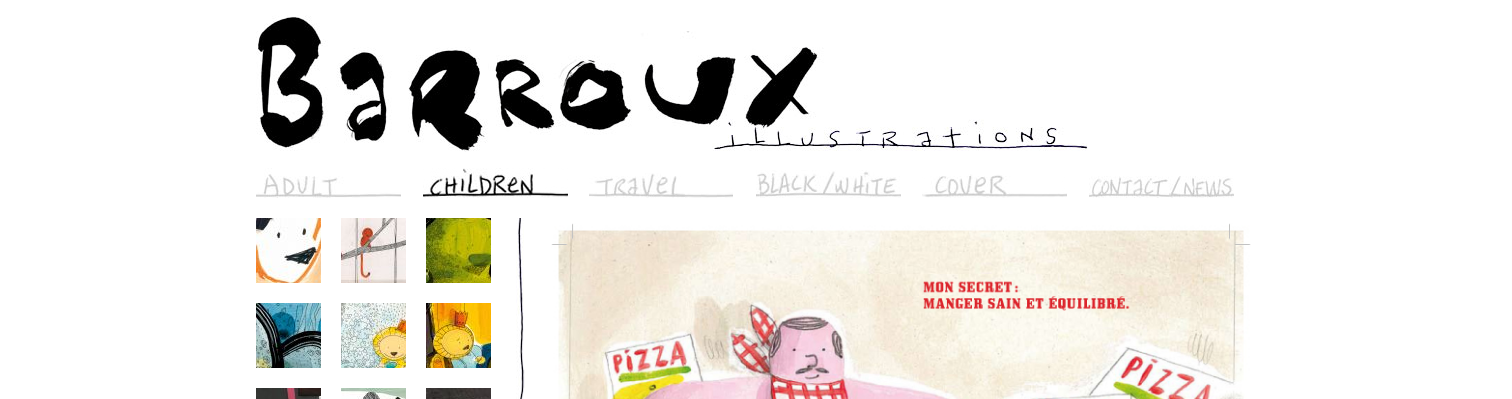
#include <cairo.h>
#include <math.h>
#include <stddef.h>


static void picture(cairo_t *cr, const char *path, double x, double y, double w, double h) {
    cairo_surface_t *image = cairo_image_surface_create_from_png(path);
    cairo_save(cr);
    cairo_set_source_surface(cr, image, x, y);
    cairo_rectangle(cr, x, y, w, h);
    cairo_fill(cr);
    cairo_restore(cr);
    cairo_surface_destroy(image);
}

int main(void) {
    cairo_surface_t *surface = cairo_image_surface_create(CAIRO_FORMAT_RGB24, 1512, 399);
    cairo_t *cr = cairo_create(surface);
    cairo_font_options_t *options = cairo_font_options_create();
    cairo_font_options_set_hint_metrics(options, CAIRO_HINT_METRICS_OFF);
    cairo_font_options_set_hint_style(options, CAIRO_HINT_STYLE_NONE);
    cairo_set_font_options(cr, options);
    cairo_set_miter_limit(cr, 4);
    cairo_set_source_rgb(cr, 1, 1, 1);
    cairo_paint(cr);
    picture(cr, "img1.png", 256, 15, 832, 137);
    picture(cr, "img2.png", 256, 168, 145, 30);
    picture(cr, "img3.png", 423, 168, 145, 30);
    picture(cr, "img4.png", 589, 173, 144, 25);
    picture(cr, "img5.png", 756, 170, 145, 28);
    picture(cr, "img6.png", 922, 174, 145, 24);
    picture(cr, "img7.png", 1089, 176, 145, 22);
    picture(cr, "img8.png", 256, 218, 65, 65);
    picture(cr, "img9.png", 341, 218, 65, 65);
    picture(cr, "img10.png", 426, 218, 65, 65);
    picture(cr, "img11.png", 256, 303, 65, 65);
    picture(cr, "img12.png", 341, 303, 65, 65);
    picture(cr, "img13.png", 426, 303, 65, 65);
    picture(cr, "img14.png", 256, 388, 65, 11);
    picture(cr, "img15.png", 341, 388, 65, 11);
    picture(cr, "img16.png", 426, 388, 65, 11);
    picture(cr, "img17.png", 516, 218, 9, 181);
    picture(cr, "img18.png", 551, 223, 700, 176);
    cairo_surface_write_to_png(surface, "page.png");
    cairo_font_options_destroy(options);
    cairo_destroy(cr);
    cairo_surface_destroy(surface);
    return 0;
}
